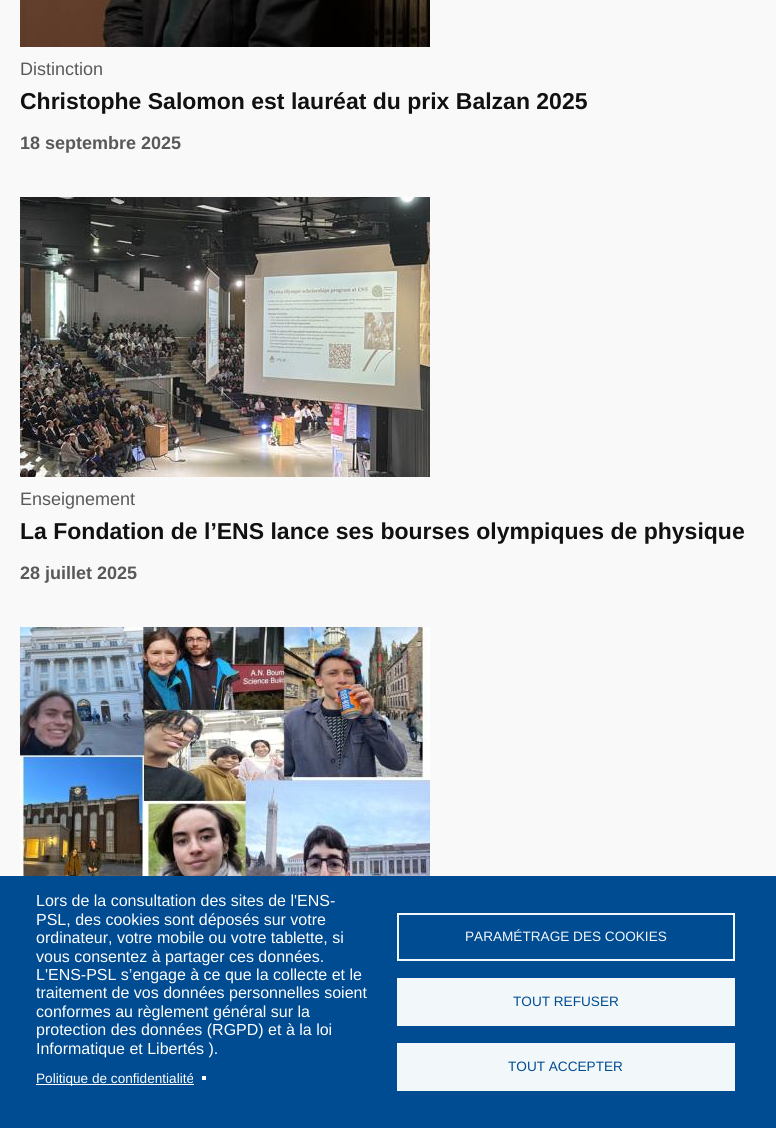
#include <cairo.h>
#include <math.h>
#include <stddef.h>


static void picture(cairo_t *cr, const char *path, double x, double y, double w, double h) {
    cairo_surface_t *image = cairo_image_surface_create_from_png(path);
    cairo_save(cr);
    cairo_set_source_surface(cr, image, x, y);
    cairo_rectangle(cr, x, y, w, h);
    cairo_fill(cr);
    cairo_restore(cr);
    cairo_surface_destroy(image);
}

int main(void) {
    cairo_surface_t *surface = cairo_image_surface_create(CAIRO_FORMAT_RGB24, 776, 1128);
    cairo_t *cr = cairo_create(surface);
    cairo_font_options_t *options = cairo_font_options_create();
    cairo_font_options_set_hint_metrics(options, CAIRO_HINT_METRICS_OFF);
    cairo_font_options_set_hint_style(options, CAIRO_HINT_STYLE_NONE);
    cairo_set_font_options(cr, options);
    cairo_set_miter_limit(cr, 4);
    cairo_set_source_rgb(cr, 0.973, 0.973, 0.973);
    cairo_paint(cr);
    picture(cr, "img1.png", 20, 0, 410, 47);
    cairo_select_font_face(cr, "Liberation Sans", CAIRO_FONT_SLANT_NORMAL, CAIRO_FONT_WEIGHT_NORMAL);
    cairo_set_font_size(cr, 18);
    cairo_set_source_rgb(cr, 0.349, 0.349, 0.349);
    cairo_move_to(cr, 20, 75);
    cairo_show_text(cr, "Distinction");
    cairo_select_font_face(cr, "Liberation Sans", CAIRO_FONT_SLANT_NORMAL, CAIRO_FONT_WEIGHT_BOLD);
    cairo_set_font_size(cr, 23);
    cairo_set_source_rgb(cr, 0.067, 0.067, 0.067);
    cairo_move_to(cr, 20, 109);
    cairo_show_text(cr, "Christophe Salomon est lauréat du prix Balzan 2025");
    cairo_set_font_size(cr, 18);
    cairo_set_source_rgb(cr, 0.349, 0.349, 0.349);
    cairo_move_to(cr, 20, 149);
    cairo_show_text(cr, "18 septembre 2025");
    picture(cr, "img2.png", 20, 197, 410, 280);
    cairo_select_font_face(cr, "Liberation Sans", CAIRO_FONT_SLANT_NORMAL, CAIRO_FONT_WEIGHT_NORMAL);
    cairo_move_to(cr, 20, 505);
    cairo_show_text(cr, "Enseignement");
    cairo_select_font_face(cr, "Liberation Sans", CAIRO_FONT_SLANT_NORMAL, CAIRO_FONT_WEIGHT_BOLD);
    cairo_set_font_size(cr, 23);
    cairo_set_source_rgb(cr, 0.067, 0.067, 0.067);
    cairo_move_to(cr, 20, 539);
    cairo_show_text(cr, "La Fondation de l’ENS lance ses bourses olympiques de physique");
    cairo_set_font_size(cr, 18);
    cairo_set_source_rgb(cr, 0.349, 0.349, 0.349);
    cairo_move_to(cr, 20, 579);
    cairo_show_text(cr, "28 juillet 2025");
    picture(cr, "img3.png", 20, 627, 410, 249);
    cairo_set_source_rgb(cr, 0, 0.298, 0.576);
    cairo_rectangle(cr, 0, 876, 776, 252);
    cairo_fill(cr);
    cairo_select_font_face(cr, "Liberation Sans", CAIRO_FONT_SLANT_NORMAL, CAIRO_FONT_WEIGHT_NORMAL);
    cairo_set_font_size(cr, 16);
    cairo_set_source_rgb(cr, 1, 1, 1);
    cairo_move_to(cr, 36, 906);
    cairo_show_text(cr, "Lors de la consultation des sites de l'ENS-");
    cairo_move_to(cr, 36, 925);
    cairo_show_text(cr, "PSL, des cookies sont déposés sur votre");
    cairo_move_to(cr, 36, 943);
    cairo_show_text(cr, "ordinateur, votre mobile ou votre tablette, si");
    cairo_move_to(cr, 36, 962);
    cairo_show_text(cr, "vous consentez à partager ces données.");
    cairo_move_to(cr, 36, 980);
    cairo_show_text(cr, "L'ENS-PSL s’engage à ce que la collecte et le");
    cairo_move_to(cr, 36, 998);
    cairo_show_text(cr, "traitement de vos données personnelles soient");
    cairo_move_to(cr, 36, 1017);
    cairo_show_text(cr, "conformes au règlement général sur la");
    cairo_move_to(cr, 36, 1035);
    cairo_show_text(cr, "protection des données (RGPD) et à la loi");
    cairo_move_to(cr, 36, 1054);
    cairo_show_text(cr, "Informatique et Libertés ).");
    cairo_rectangle(cr, 36, 1084, 158, 1);
    cairo_fill(cr);
    cairo_set_font_size(cr, 13.6);
    cairo_move_to(cr, 36, 1083);
    cairo_show_text(cr, "Politique de confidentialité");
    cairo_rectangle(cr, 202, 1076, 4, 4);
    cairo_fill(cr);
    cairo_rectangle(cr, 398, 914, 336, 46);
    cairo_set_source_rgb(cr, 0.949, 0.965, 0.98);
    cairo_stroke(cr);
    cairo_move_to(cr, 465, 941);
    cairo_show_text(cr, "PARAMÉTRAGE DES COOKIES");
    cairo_rectangle(cr, 397, 978, 338, 48);
    cairo_fill(cr);
    cairo_set_source_rgb(cr, 0, 0.298, 0.576);
    cairo_move_to(cr, 513, 1006);
    cairo_show_text(cr, "TOUT REFUSER");
    cairo_set_source_rgb(cr, 0.949, 0.965, 0.98);
    cairo_rectangle(cr, 397, 1043, 338, 48);
    cairo_fill(cr);
    cairo_set_source_rgb(cr, 0, 0.298, 0.576);
    cairo_move_to(cr, 508, 1071);
    cairo_show_text(cr, "TOUT ACCEPTER");
    cairo_surface_write_to_png(surface, "page.png");
    cairo_font_options_destroy(options);
    cairo_destroy(cr);
    cairo_surface_destroy(surface);
    return 0;
}
